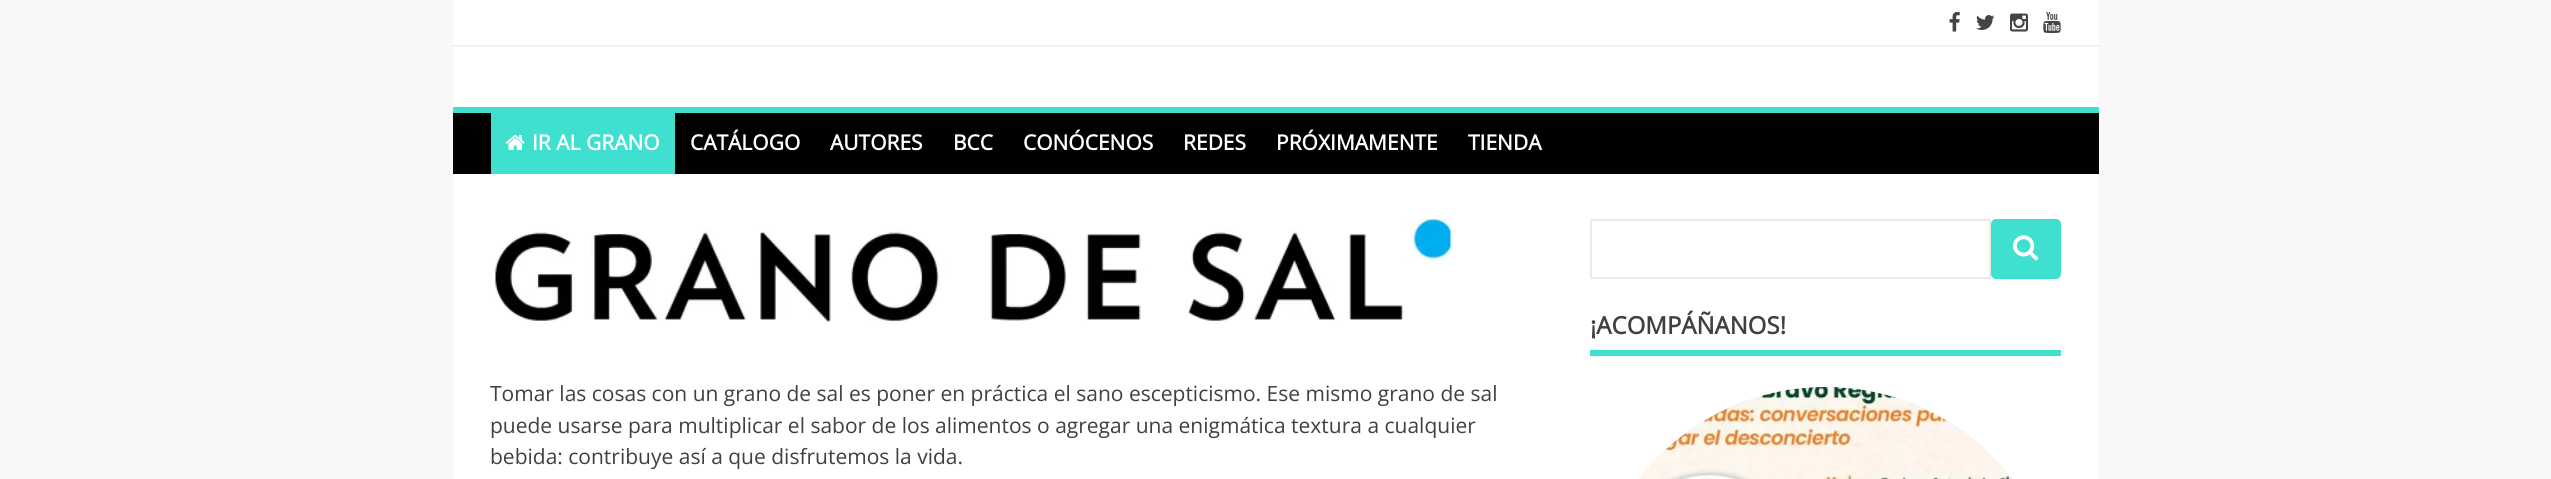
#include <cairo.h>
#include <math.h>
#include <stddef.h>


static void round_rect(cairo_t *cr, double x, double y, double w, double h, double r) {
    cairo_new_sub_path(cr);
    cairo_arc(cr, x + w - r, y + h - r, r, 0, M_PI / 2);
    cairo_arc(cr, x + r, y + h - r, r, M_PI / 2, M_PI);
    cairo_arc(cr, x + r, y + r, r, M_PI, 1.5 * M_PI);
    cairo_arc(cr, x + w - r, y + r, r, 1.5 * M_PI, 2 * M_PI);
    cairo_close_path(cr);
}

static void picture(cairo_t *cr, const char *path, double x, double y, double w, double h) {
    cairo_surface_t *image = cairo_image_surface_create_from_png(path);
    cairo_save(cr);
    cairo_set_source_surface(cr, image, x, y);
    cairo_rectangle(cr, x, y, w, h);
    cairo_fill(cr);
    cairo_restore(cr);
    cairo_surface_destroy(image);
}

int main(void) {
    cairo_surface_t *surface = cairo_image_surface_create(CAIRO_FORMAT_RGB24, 2551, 479);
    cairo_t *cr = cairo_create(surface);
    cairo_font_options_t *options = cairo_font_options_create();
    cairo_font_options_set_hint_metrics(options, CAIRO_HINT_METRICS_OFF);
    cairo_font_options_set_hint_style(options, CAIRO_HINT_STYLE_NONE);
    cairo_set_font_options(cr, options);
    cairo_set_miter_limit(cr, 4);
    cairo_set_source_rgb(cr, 0.969, 0.969, 0.969);
    cairo_paint(cr);
    cairo_set_source_rgb(cr, 1, 1, 1);
    cairo_rectangle(cr, 453, 0, 1646, 107);
    cairo_fill(cr);
    cairo_set_source_rgb(cr, 0.949, 0.949, 0.949);
    cairo_rectangle(cr, 453, 45, 1646, 2);
    cairo_fill(cr);
    picture(cr, "img1.png", 1949, 12, 11, 20);
    picture(cr, "img2.png", 1976, 15, 19, 15);
    picture(cr, "img3.png", 2010, 13, 18, 19);
    picture(cr, "img4.png", 2043, 12, 18, 21);
    cairo_set_source_rgb(cr, 0, 0, 0);
    cairo_rectangle(cr, 453, 113, 1646, 61);
    cairo_fill(cr);
    cairo_set_source_rgb(cr, 0.251, 0.878, 0.816);
    cairo_rectangle(cr, 453, 107, 1646, 6);
    cairo_fill(cr);
    cairo_rectangle(cr, 491, 113, 184, 61);
    cairo_fill(cr);
    picture(cr, "img5.png", 505, 135, 20, 15);
    cairo_select_font_face(cr, "Open Sans", CAIRO_FONT_SLANT_NORMAL, CAIRO_FONT_WEIGHT_BOLD);
    cairo_set_font_size(cr, 21);
    cairo_set_source_rgb(cr, 1, 1, 1);
    cairo_move_to(cr, 532, 150);
    cairo_show_text(cr, "IR AL GRANO");
    cairo_move_to(cr, 690, 150);
    cairo_show_text(cr, "CATÁLOGO");
    cairo_move_to(cr, 830, 150);
    cairo_show_text(cr, "AUTORES");
    cairo_move_to(cr, 953, 150);
    cairo_show_text(cr, "BCC");
    cairo_move_to(cr, 1023, 150);
    cairo_show_text(cr, "CONÓCENOS");
    cairo_move_to(cr, 1183, 150);
    cairo_show_text(cr, "REDES");
    cairo_move_to(cr, 1276, 150);
    cairo_show_text(cr, "PRÓXIMAMENTE");
    cairo_move_to(cr, 1468, 150);
    cairo_show_text(cr, "TIENDA");
    cairo_rectangle(cr, 453, 174, 1646, 305);
    cairo_fill(cr);
    cairo_rectangle(cr, 1591, 220, 399, 58);
    cairo_set_source_rgb(cr, 0.918, 0.918, 0.918);
    cairo_stroke(cr);
    cairo_set_source_rgb(cr, 0.251, 0.878, 0.816);
    round_rect(cr, 1991, 219, 70, 60, 5);
    cairo_fill(cr);
    picture(cr, "img6.png", 2013, 235, 26, 26);
    cairo_rectangle(cr, 1590, 350, 471, 6);
    cairo_fill(cr);
    cairo_set_font_size(cr, 24);
    cairo_set_source_rgb(cr, 0.251, 0.251, 0.251);
    cairo_move_to(cr, 1590, 334);
    cairo_show_text(cr, "¡ACOMPÁÑANOS!");
    cairo_set_source_rgb(cr, 0.902, 0.902, 0.902);
    round_rect(cr, 1590, 387, 471, 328, 235.5);
    cairo_fill(cr);
    picture(cr, "img7.png", 1639, 387, 373, 92);
    picture(cr, "img8.png", 495, 219, 956, 105);
    cairo_select_font_face(cr, "Open Sans", CAIRO_FONT_SLANT_NORMAL, CAIRO_FONT_WEIGHT_NORMAL);
    cairo_set_font_size(cr, 21);
    cairo_set_source_rgb(cr, 0.251, 0.251, 0.251);
    cairo_move_to(cr, 490, 401);
    cairo_show_text(cr, "Tomar las cosas con un grano de sal es poner en práctica el sano escepticismo. Ese mismo grano de sal");
    cairo_move_to(cr, 490, 433);
    cairo_show_text(cr, "puede usarse para multiplicar el sabor de los alimentos o agregar una enigmática textura a cualquier");
    cairo_move_to(cr, 490, 464);
    cairo_show_text(cr, "bebida: contribuye así a que disfrutemos la vida.");
    cairo_surface_write_to_png(surface, "page.png");
    cairo_font_options_destroy(options);
    cairo_destroy(cr);
    cairo_surface_destroy(surface);
    return 0;
}
